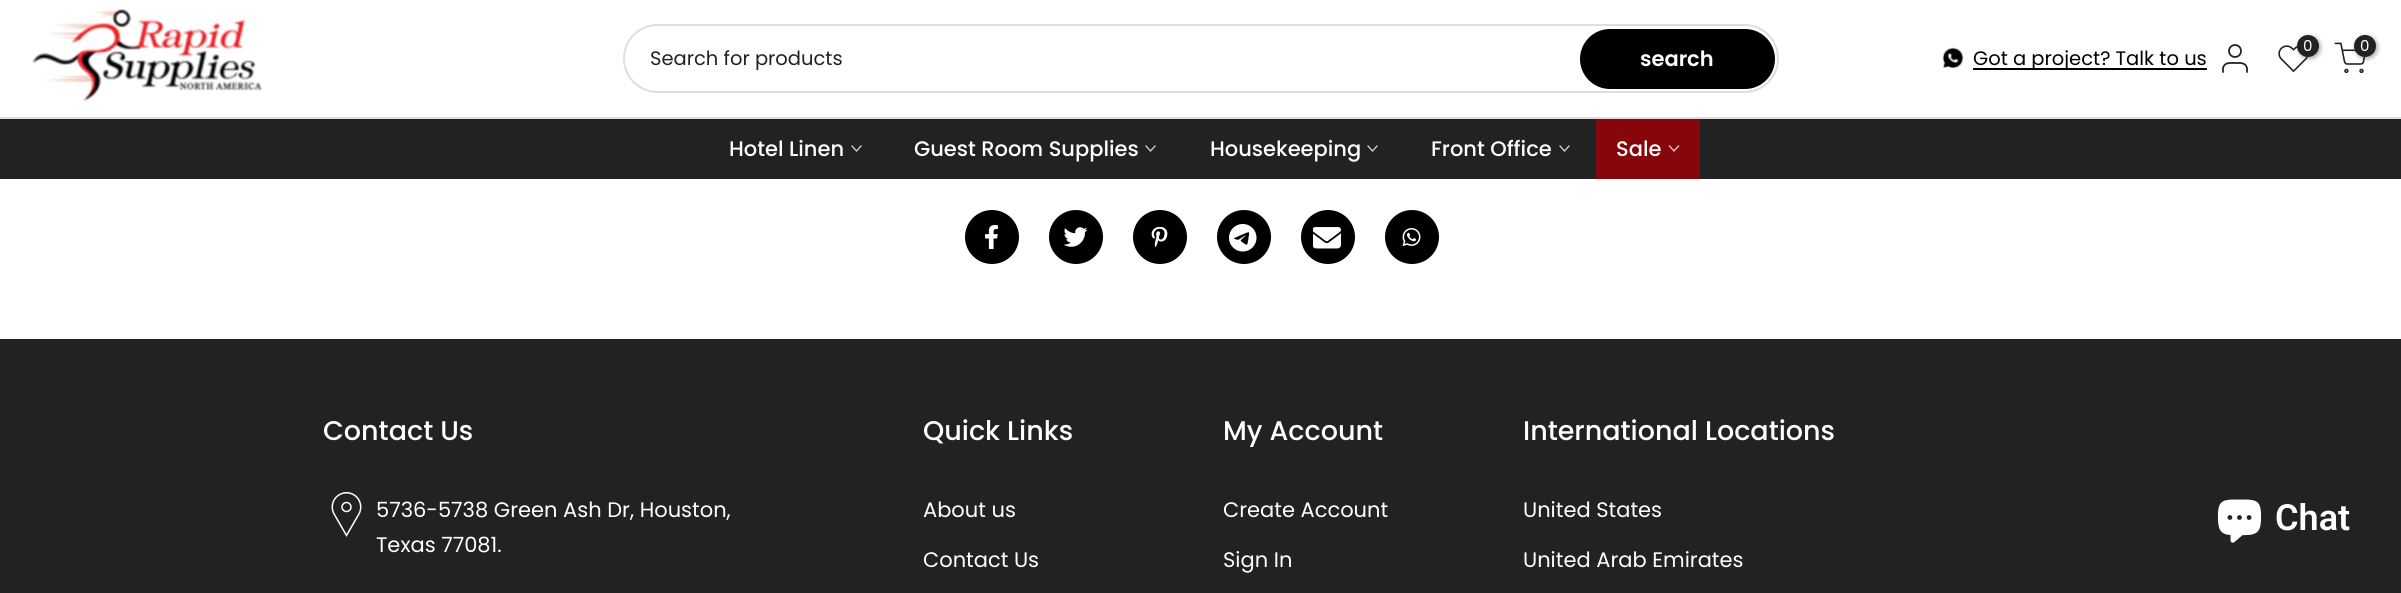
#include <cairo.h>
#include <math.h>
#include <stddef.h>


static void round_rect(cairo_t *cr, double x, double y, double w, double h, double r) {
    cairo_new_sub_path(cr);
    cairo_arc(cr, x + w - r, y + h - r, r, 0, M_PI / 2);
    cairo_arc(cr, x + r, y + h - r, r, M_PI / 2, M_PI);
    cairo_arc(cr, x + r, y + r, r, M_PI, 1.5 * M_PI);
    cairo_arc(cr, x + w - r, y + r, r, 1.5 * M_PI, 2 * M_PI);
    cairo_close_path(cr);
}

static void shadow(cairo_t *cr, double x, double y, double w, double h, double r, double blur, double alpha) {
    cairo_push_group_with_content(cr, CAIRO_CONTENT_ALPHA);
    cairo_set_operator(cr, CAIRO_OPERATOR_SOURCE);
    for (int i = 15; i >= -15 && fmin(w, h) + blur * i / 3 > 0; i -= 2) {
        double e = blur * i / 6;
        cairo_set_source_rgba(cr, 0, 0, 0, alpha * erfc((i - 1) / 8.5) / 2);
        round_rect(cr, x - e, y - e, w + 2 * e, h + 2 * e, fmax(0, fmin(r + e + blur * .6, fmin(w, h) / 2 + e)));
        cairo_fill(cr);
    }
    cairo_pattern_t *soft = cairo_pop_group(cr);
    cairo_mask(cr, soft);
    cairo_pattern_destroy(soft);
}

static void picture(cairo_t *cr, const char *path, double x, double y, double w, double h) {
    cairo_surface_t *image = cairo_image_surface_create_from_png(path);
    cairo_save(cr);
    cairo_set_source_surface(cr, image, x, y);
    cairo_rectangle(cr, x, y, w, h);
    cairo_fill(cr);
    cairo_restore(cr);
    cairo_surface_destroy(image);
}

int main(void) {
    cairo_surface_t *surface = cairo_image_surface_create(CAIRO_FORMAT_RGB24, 2401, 593);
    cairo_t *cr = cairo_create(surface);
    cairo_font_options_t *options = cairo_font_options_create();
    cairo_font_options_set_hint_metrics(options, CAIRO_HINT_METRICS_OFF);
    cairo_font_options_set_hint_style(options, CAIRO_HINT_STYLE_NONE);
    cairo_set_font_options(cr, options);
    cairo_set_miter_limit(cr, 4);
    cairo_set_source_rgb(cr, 1, 1, 1);
    cairo_paint(cr);
    cairo_set_source_rgb(cr, 0.871, 0.871, 0.871);
    cairo_rectangle(cr, 0, 117, 2401, 2);
    cairo_fill(cr);
    picture(cr, "img1.png", 32, 9, 230, 93);
    cairo_arc(cr, 2235, 51, 6, 0, 2 * M_PI);
    cairo_set_source_rgb(cr, 0.133, 0.133, 0.133);
    cairo_set_line_width(cr, 1.8);
    cairo_stroke(cr);
    cairo_new_path(cr);
    cairo_move_to(cr, 2247, 72);
    cairo_line_to(cr, 2247, 68);
    cairo_curve_to(cr, 2245.5, 62, 2239.5, 63, 2235, 63);
    cairo_curve_to(cr, 2230.5, 63, 2224.5, 62, 2223, 68);
    cairo_line_to(cr, 2223, 72);
    cairo_set_line_cap(cr, CAIRO_LINE_CAP_ROUND);
    cairo_set_line_join(cr, CAIRO_LINE_JOIN_ROUND);
    cairo_stroke(cr);
    picture(cr, "img2.png", 2278, 45, 31, 27);
    cairo_set_source_rgb(cr, 0, 0, 0);
    shadow(cr, 2298, 36, 23, 23, 11.5, 2, 0.3);
    cairo_set_source_rgb(cr, 0.133, 0.133, 0.133);
    cairo_arc(cr, 2308, 46, 11, 0, 2 * M_PI);
    cairo_fill(cr);
    cairo_select_font_face(cr, "Poppins", CAIRO_FONT_SLANT_NORMAL, CAIRO_FONT_WEIGHT_NORMAL);
    cairo_set_font_size(cr, 15);
    cairo_set_source_rgb(cr, 1, 1, 1);
    cairo_move_to(cr, 2303, 51);
    cairo_show_text(cr, "0");
    picture(cr, "img3.png", 2334, 42, 32, 32);
    cairo_set_source_rgb(cr, 0, 0, 0);
    shadow(cr, 2355, 36, 23, 23, 11.5, 2, 0.3);
    cairo_set_source_rgb(cr, 0.133, 0.133, 0.133);
    cairo_arc(cr, 2365, 46, 11, 0, 2 * M_PI);
    cairo_fill(cr);
    cairo_set_source_rgb(cr, 1, 1, 1);
    cairo_move_to(cr, 2360, 51);
    cairo_show_text(cr, "0");
    round_rect(cr, 624, 25, 1154, 67, 33.5);
    cairo_set_source_rgb(cr, 0.871, 0.871, 0.871);
    cairo_set_line_width(cr, 2);
    cairo_set_line_cap(cr, CAIRO_LINE_CAP_BUTT);
    cairo_set_line_join(cr, CAIRO_LINE_JOIN_MITER);
    cairo_stroke(cr);
    cairo_set_font_size(cr, 19.5);
    cairo_set_source_rgb(cr, 0.133, 0.133, 0.133);
    cairo_move_to(cr, 650, 65);
    cairo_show_text(cr, "Search for products");
    cairo_set_source_rgb(cr, 0, 0, 0);
    round_rect(cr, 1580, 29, 195, 60, 30);
    cairo_fill(cr);
    cairo_select_font_face(cr, "Poppins SemiBold", CAIRO_FONT_SLANT_NORMAL, CAIRO_FONT_WEIGHT_NORMAL);
    cairo_set_font_size(cr, 21);
    cairo_set_source_rgb(cr, 1, 1, 1);
    cairo_move_to(cr, 1640, 66);
    cairo_show_text(cr, "search");
    picture(cr, "img4.png", 1942, 47, 22, 22);
    cairo_set_source_rgb(cr, 0, 0, 0);
    cairo_rectangle(cr, 1973, 68, 234, 2);
    cairo_fill(cr);
    cairo_select_font_face(cr, "Poppins", CAIRO_FONT_SLANT_NORMAL, CAIRO_FONT_WEIGHT_NORMAL);
    cairo_set_font_size(cr, 19.5);
    cairo_move_to(cr, 1973, 65);
    cairo_show_text(cr, "Got a project? Talk to us");
    cairo_set_source_rgb(cr, 0.133, 0.133, 0.133);
    cairo_rectangle(cr, 0, 119, 2401, 60);
    cairo_fill(cr);
    cairo_select_font_face(cr, "Poppins Medium", CAIRO_FONT_SLANT_NORMAL, CAIRO_FONT_WEIGHT_NORMAL);
    cairo_set_font_size(cr, 21);
    cairo_set_source_rgb(cr, 1, 1, 1);
    cairo_move_to(cr, 729, 156);
    cairo_show_text(cr, "Hotel Linen");
    cairo_new_path(cr);
    cairo_move_to(cr, 861, 146);
    cairo_line_to(cr, 856.5, 151);
    cairo_line_to(cr, 852, 146);
    cairo_set_source_rgb(cr, 0.827, 0.827, 0.827);
    cairo_set_line_width(cr, 1.3);
    cairo_set_line_cap(cr, CAIRO_LINE_CAP_SQUARE);
    cairo_stroke(cr);
    cairo_set_source_rgb(cr, 1, 1, 1);
    cairo_move_to(cr, 914, 156);
    cairo_show_text(cr, "Guest Room Supplies");
    cairo_new_path(cr);
    cairo_move_to(cr, 1155, 146);
    cairo_line_to(cr, 1150.5, 151);
    cairo_line_to(cr, 1146, 146);
    cairo_set_source_rgb(cr, 0.827, 0.827, 0.827);
    cairo_stroke(cr);
    cairo_set_source_rgb(cr, 1, 1, 1);
    cairo_move_to(cr, 1210, 156);
    cairo_show_text(cr, "Housekeeping");
    cairo_new_path(cr);
    cairo_move_to(cr, 1377, 146);
    cairo_line_to(cr, 1372.5, 151);
    cairo_line_to(cr, 1368, 146);
    cairo_set_source_rgb(cr, 0.827, 0.827, 0.827);
    cairo_stroke(cr);
    cairo_set_source_rgb(cr, 1, 1, 1);
    cairo_move_to(cr, 1431, 156);
    cairo_show_text(cr, "Front Office");
    cairo_new_path(cr);
    cairo_move_to(cr, 1569, 146);
    cairo_line_to(cr, 1564.5, 151);
    cairo_line_to(cr, 1560, 146);
    cairo_set_source_rgb(cr, 0.827, 0.827, 0.827);
    cairo_stroke(cr);
    cairo_set_source_rgb(cr, 0.529, 0.027, 0.043);
    cairo_rectangle(cr, 1596, 119, 104, 60);
    cairo_fill(cr);
    cairo_set_source_rgb(cr, 1, 1, 1);
    cairo_move_to(cr, 1616, 156);
    cairo_show_text(cr, "Sale");
    cairo_new_path(cr);
    cairo_move_to(cr, 1678.5, 146);
    cairo_line_to(cr, 1674, 151);
    cairo_line_to(cr, 1669.5, 146);
    cairo_set_source_rgb(cr, 0.906, 0.804, 0.808);
    cairo_stroke(cr);
    cairo_set_source_rgb(cr, 0, 0, 0);
    cairo_arc(cr, 992, 237, 27, 0, 2 * M_PI);
    cairo_fill(cr);
    picture(cr, "img5.png", 985, 225, 13, 24);
    cairo_arc(cr, 1076, 237, 27, 0, 2 * M_PI);
    cairo_fill(cr);
    picture(cr, "img6.png", 1064, 227, 24, 20);
    cairo_arc(cr, 1160, 237, 27, 0, 2 * M_PI);
    cairo_fill(cr);
    picture(cr, "img7.png", 1151, 227, 17, 21);
    cairo_arc(cr, 1244, 237, 27, 0, 2 * M_PI);
    cairo_fill(cr);
    picture(cr, "img8.png", 1229, 224, 28, 28);
    cairo_arc(cr, 1328, 237, 27, 0, 2 * M_PI);
    cairo_fill(cr);
    picture(cr, "img9.png", 1313, 227, 28, 22);
    cairo_arc(cr, 1412, 237, 27, 0, 2 * M_PI);
    cairo_fill(cr);
    picture(cr, "img10.png", 1402, 228, 19, 18);
    cairo_set_source_rgb(cr, 0.133, 0.133, 0.133);
    cairo_rectangle(cr, 0, 339, 2401, 254);
    cairo_fill(cr);
    cairo_set_font_size(cr, 27);
    cairo_set_source_rgb(cr, 1, 1, 1);
    cairo_move_to(cr, 323, 440);
    cairo_show_text(cr, "Contact Us");
    picture(cr, "img11.png", 331, 492, 31, 45);
    cairo_select_font_face(cr, "Poppins", CAIRO_FONT_SLANT_NORMAL, CAIRO_FONT_WEIGHT_NORMAL);
    cairo_set_font_size(cr, 21);
    cairo_move_to(cr, 376, 517);
    cairo_show_text(cr, "5736-5738 Green Ash Dr, Houston,");
    cairo_move_to(cr, 376, 552);
    cairo_show_text(cr, "Texas 77081.");
    cairo_select_font_face(cr, "Poppins Medium", CAIRO_FONT_SLANT_NORMAL, CAIRO_FONT_WEIGHT_NORMAL);
    cairo_set_font_size(cr, 27);
    cairo_move_to(cr, 923, 440);
    cairo_show_text(cr, "Quick Links");
    cairo_select_font_face(cr, "Poppins", CAIRO_FONT_SLANT_NORMAL, CAIRO_FONT_WEIGHT_NORMAL);
    cairo_set_font_size(cr, 21);
    cairo_move_to(cr, 923, 517);
    cairo_show_text(cr, "About us");
    cairo_move_to(cr, 923, 567);
    cairo_show_text(cr, "Contact Us");
    cairo_select_font_face(cr, "Poppins Medium", CAIRO_FONT_SLANT_NORMAL, CAIRO_FONT_WEIGHT_NORMAL);
    cairo_set_font_size(cr, 27);
    cairo_move_to(cr, 1223, 440);
    cairo_show_text(cr, "My Account");
    cairo_select_font_face(cr, "Poppins", CAIRO_FONT_SLANT_NORMAL, CAIRO_FONT_WEIGHT_NORMAL);
    cairo_set_font_size(cr, 21);
    cairo_move_to(cr, 1223, 517);
    cairo_show_text(cr, "Create Account");
    cairo_move_to(cr, 1223, 567);
    cairo_show_text(cr, "Sign In");
    cairo_select_font_face(cr, "Poppins Medium", CAIRO_FONT_SLANT_NORMAL, CAIRO_FONT_WEIGHT_NORMAL);
    cairo_set_font_size(cr, 27);
    cairo_move_to(cr, 1523, 440);
    cairo_show_text(cr, "International Locations");
    cairo_select_font_face(cr, "Poppins", CAIRO_FONT_SLANT_NORMAL, CAIRO_FONT_WEIGHT_NORMAL);
    cairo_set_font_size(cr, 21);
    cairo_move_to(cr, 1523, 517);
    cairo_show_text(cr, "United States");
    cairo_move_to(cr, 1523, 567);
    cairo_show_text(cr, "United Arab Emirates");
    picture(cr, "img12.png", 2217, 499, 45, 44);
    cairo_select_font_face(cr, "Roboto SemiBold", CAIRO_FONT_SLANT_NORMAL, CAIRO_FONT_WEIGHT_NORMAL);
    cairo_set_font_size(cr, 36);
    cairo_move_to(cr, 2275, 530);
    cairo_show_text(cr, "Chat");
    cairo_surface_write_to_png(surface, "page.png");
    cairo_font_options_destroy(options);
    cairo_destroy(cr);
    cairo_surface_destroy(surface);
    return 0;
}
